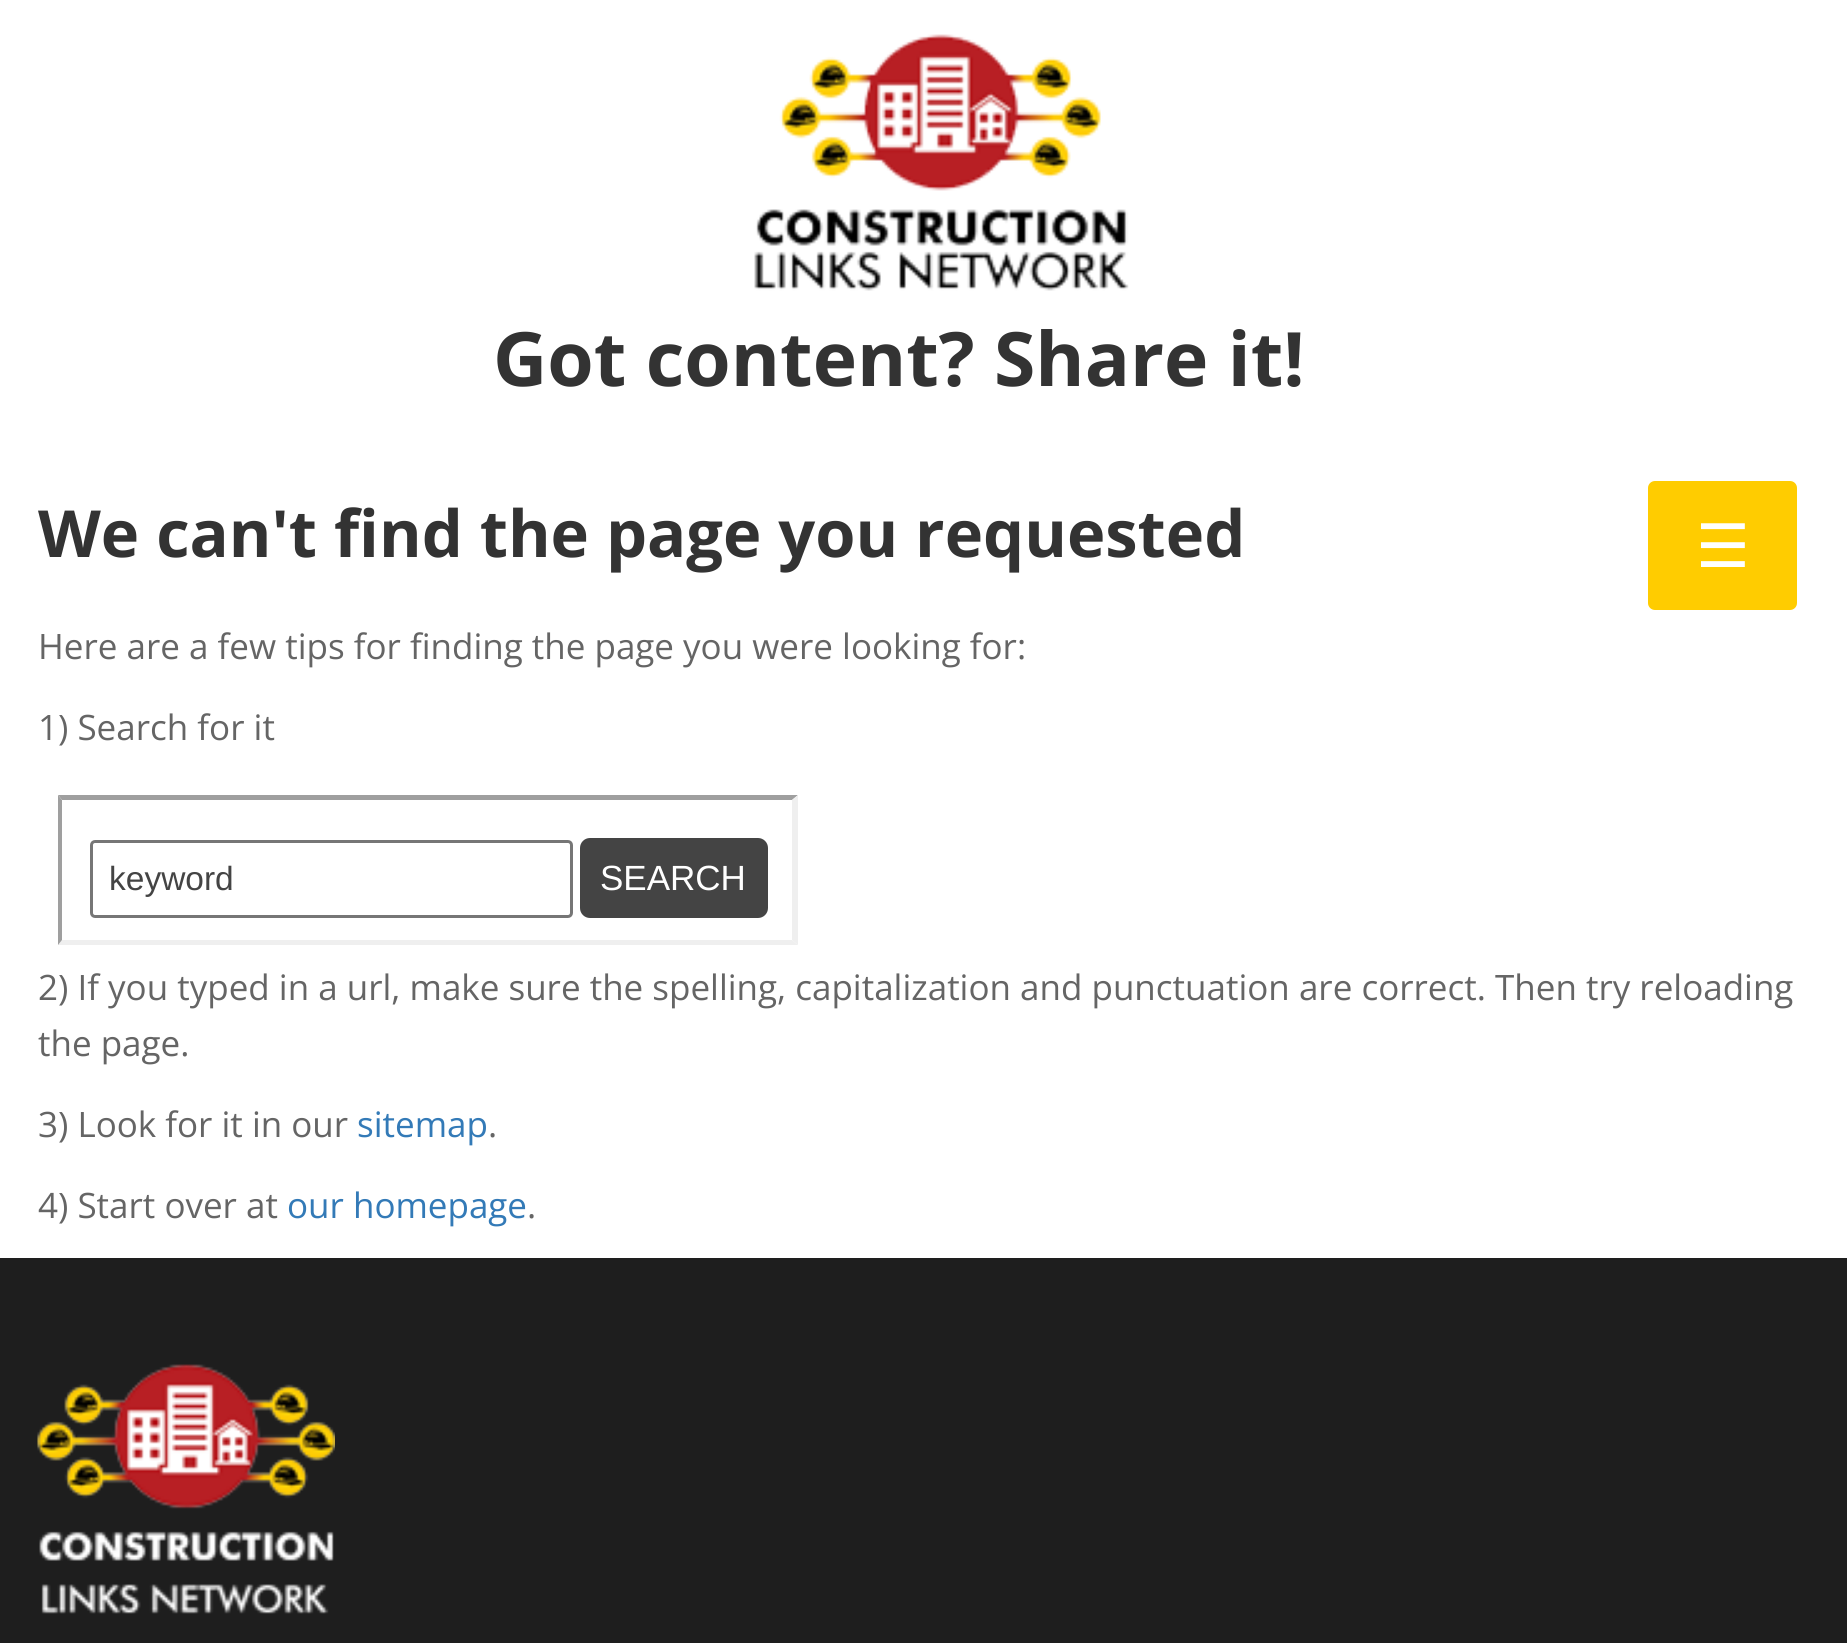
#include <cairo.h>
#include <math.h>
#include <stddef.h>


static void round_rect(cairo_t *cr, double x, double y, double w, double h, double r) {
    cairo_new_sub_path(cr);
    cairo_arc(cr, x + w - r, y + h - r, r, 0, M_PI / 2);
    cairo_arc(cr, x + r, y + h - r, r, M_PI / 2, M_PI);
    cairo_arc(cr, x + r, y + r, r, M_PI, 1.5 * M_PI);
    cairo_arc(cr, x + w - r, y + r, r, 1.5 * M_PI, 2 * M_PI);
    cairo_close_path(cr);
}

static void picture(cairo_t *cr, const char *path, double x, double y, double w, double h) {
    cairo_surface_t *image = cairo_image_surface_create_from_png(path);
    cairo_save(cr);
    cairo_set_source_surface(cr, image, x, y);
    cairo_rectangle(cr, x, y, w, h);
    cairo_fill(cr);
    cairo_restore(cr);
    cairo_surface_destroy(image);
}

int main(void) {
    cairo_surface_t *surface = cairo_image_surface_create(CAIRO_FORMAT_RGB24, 1847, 1643);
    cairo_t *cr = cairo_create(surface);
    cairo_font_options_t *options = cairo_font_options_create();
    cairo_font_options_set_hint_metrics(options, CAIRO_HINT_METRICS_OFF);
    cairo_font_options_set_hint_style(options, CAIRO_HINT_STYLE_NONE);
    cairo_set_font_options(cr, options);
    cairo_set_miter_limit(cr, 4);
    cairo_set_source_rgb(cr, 1, 1, 1);
    cairo_paint(cr);
    picture(cr, "img1.png", 754, 34, 375, 257);
    cairo_select_font_face(cr, "Open Sans", CAIRO_FONT_SLANT_NORMAL, CAIRO_FONT_WEIGHT_BOLD);
    cairo_set_font_size(cr, 75);
    cairo_set_source_rgb(cr, 0.2, 0.2, 0.2);
    cairo_move_to(cr, 493, 386);
    cairo_show_text(cr, "Got content? Share it!");
    cairo_set_source_rgb(cr, 1, 0.8, 0);
    round_rect(cr, 1646.5, 479.5, 152, 132, 8.5);
    cairo_fill_preserve(cr);
    cairo_set_source_rgb(cr, 1, 1, 1);
    cairo_set_line_width(cr, 3);
    cairo_stroke(cr);
    cairo_select_font_face(cr, "DejaVu Sans", CAIRO_FONT_SLANT_NORMAL, CAIRO_FONT_WEIGHT_NORMAL);
    cairo_set_font_size(cr, 60);
    cairo_move_to(cr, 1696, 567);
    cairo_show_text(cr, "☰");
    cairo_select_font_face(cr, "Open Sans", CAIRO_FONT_SLANT_NORMAL, CAIRO_FONT_WEIGHT_BOLD);
    cairo_set_font_size(cr, 65);
    cairo_set_source_rgb(cr, 0.2, 0.2, 0.2);
    cairo_move_to(cr, 38, 557);
    cairo_show_text(cr, "We can't find the page you requested");
    cairo_select_font_face(cr, "Open Sans", CAIRO_FONT_SLANT_NORMAL, CAIRO_FONT_WEIGHT_NORMAL);
    cairo_set_font_size(cr, 35);
    cairo_set_source_rgb(cr, 0.396, 0.396, 0.396);
    cairo_move_to(cr, 38, 659);
    cairo_show_text(cr, "Here are a few tips for finding the page you were looking for:");
    cairo_move_to(cr, 38, 740);
    cairo_show_text(cr, "1) Search for it");
    cairo_set_source_rgb(cr, 0.624, 0.624, 0.624);
    cairo_new_path(cr);
    cairo_move_to(cr, 58, 795);
    cairo_line_to(cr, 798, 795);
    cairo_line_to(cr, 792, 800);
    cairo_line_to(cr, 62, 800);
    cairo_close_path(cr);
    cairo_fill(cr);
    cairo_set_source_rgb(cr, 0.937, 0.937, 0.937);
    cairo_new_path(cr);
    cairo_move_to(cr, 798, 795);
    cairo_line_to(cr, 798, 945);
    cairo_line_to(cr, 792, 940);
    cairo_line_to(cr, 792, 800);
    cairo_close_path(cr);
    cairo_fill(cr);
    cairo_new_path(cr);
    cairo_move_to(cr, 798, 945);
    cairo_line_to(cr, 58, 945);
    cairo_line_to(cr, 62, 940);
    cairo_line_to(cr, 792, 940);
    cairo_close_path(cr);
    cairo_fill(cr);
    cairo_set_source_rgb(cr, 0.624, 0.624, 0.624);
    cairo_new_path(cr);
    cairo_move_to(cr, 58, 945);
    cairo_line_to(cr, 58, 795);
    cairo_line_to(cr, 62, 800);
    cairo_line_to(cr, 62, 940);
    cairo_close_path(cr);
    cairo_fill(cr);
    round_rect(cr, 91.5, 841.5, 480, 75, 3.5);
    cairo_set_source_rgb(cr, 0.463, 0.463, 0.463);
    cairo_stroke(cr);
    cairo_select_font_face(cr, "Liberation Sans", CAIRO_FONT_SLANT_NORMAL, CAIRO_FONT_WEIGHT_NORMAL);
    cairo_set_font_size(cr, 33.5);
    cairo_set_source_rgb(cr, 0.267, 0.267, 0.267);
    cairo_move_to(cr, 109, 890);
    cairo_show_text(cr, "keyword");
    round_rect(cr, 581.5, 839.5, 185, 77, 8.5);
    cairo_fill_preserve(cr);
    cairo_stroke(cr);
    cairo_set_font_size(cr, 35);
    cairo_set_source_rgb(cr, 1, 1, 1);
    cairo_move_to(cr, 600, 890);
    cairo_show_text(cr, "SEARCH");
    cairo_select_font_face(cr, "Open Sans", CAIRO_FONT_SLANT_NORMAL, CAIRO_FONT_WEIGHT_NORMAL);
    cairo_set_source_rgb(cr, 0.396, 0.396, 0.396);
    cairo_move_to(cr, 38, 1000);
    cairo_show_text(cr, "2) If you typed in a url, make sure the spelling, capitalization and punctuation are correct. Then try reloading");
    cairo_move_to(cr, 38, 1056);
    cairo_show_text(cr, "the page.");
    cairo_move_to(cr, 38, 1137);
    cairo_show_text(cr, "3) Look for it in our");
    cairo_set_source_rgb(cr, 0.2, 0.478, 0.718);
    cairo_move_to(cr, 357, 1137);
    cairo_show_text(cr, "sitemap");
    cairo_set_source_rgb(cr, 0.396, 0.396, 0.396);
    cairo_move_to(cr, 488, 1137);
    cairo_show_text(cr, ".");
    cairo_move_to(cr, 38, 1218);
    cairo_show_text(cr, "4) Start over at");
    cairo_set_source_rgb(cr, 0.2, 0.478, 0.718);
    cairo_move_to(cr, 287, 1218);
    cairo_show_text(cr, "our homepage");
    cairo_set_source_rgb(cr, 0.396, 0.396, 0.396);
    cairo_move_to(cr, 527, 1218);
    cairo_show_text(cr, ".");
    cairo_set_source_rgb(cr, 0.118, 0.118, 0.118);
    cairo_rectangle(cr, 0, 1258, 1847, 385);
    cairo_fill(cr);
    picture(cr, "img2.png", 37, 1364, 298, 250);
    cairo_surface_write_to_png(surface, "page.png");
    cairo_font_options_destroy(options);
    cairo_destroy(cr);
    cairo_surface_destroy(surface);
    return 0;
}
